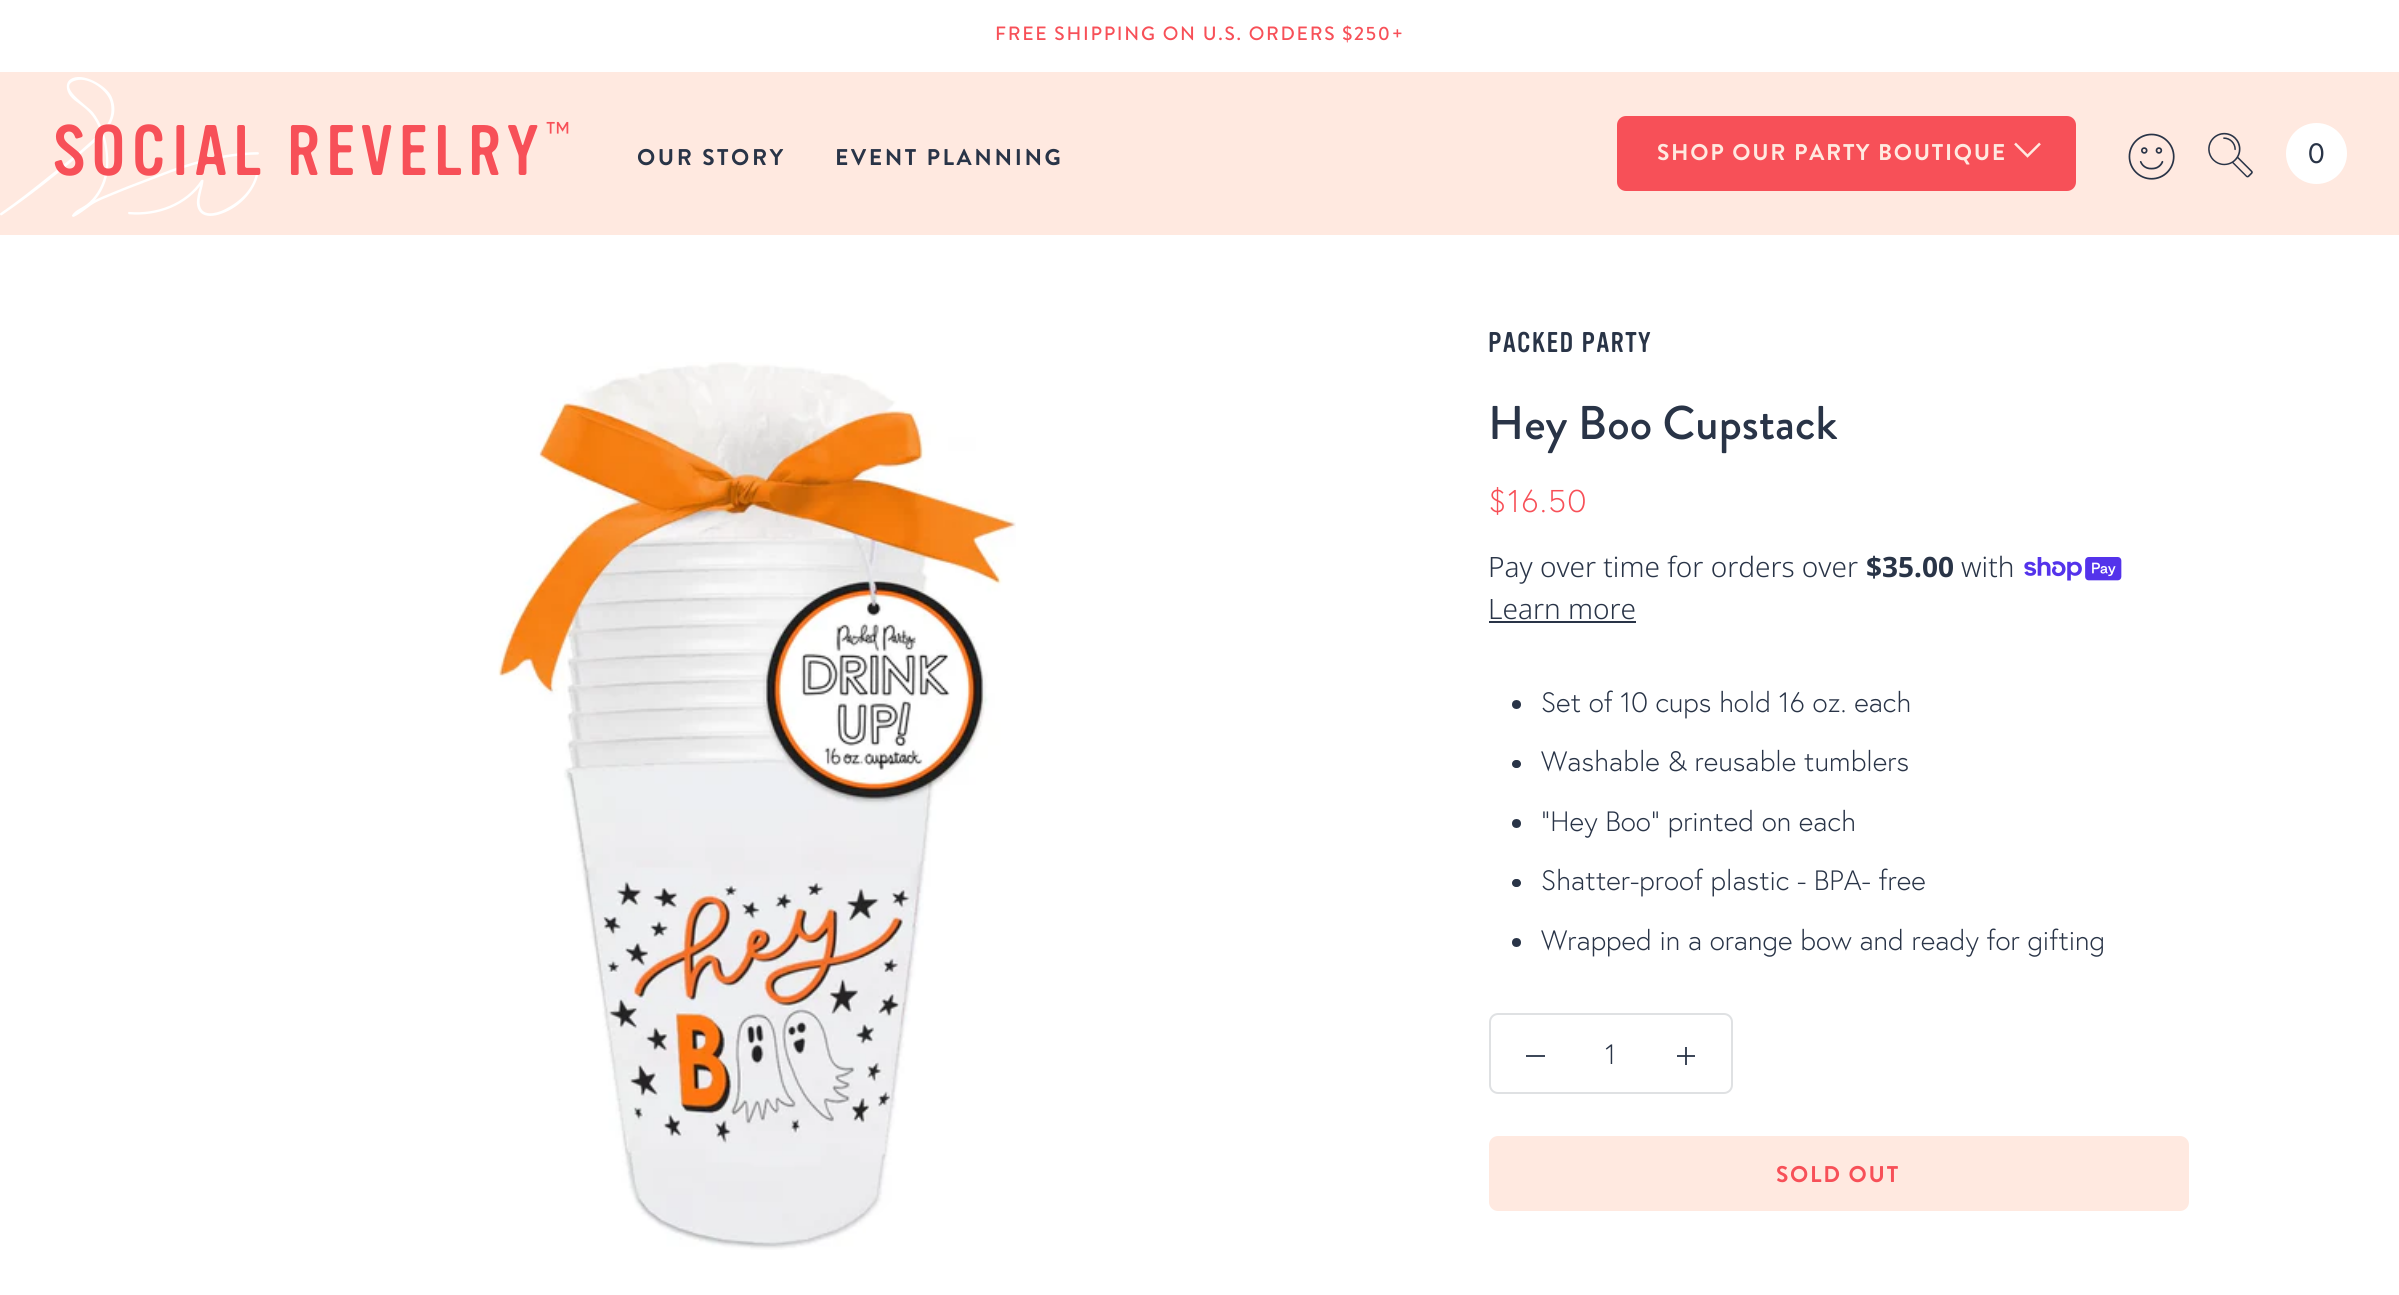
#include <cairo.h>
#include <math.h>
#include <stddef.h>


static void spaced_text(cairo_t *cr, double x, double y, const char *s, double letter, double word) {
    cairo_move_to(cr, x, y);
    while (*s) {
        char ch[5] = {0};
        int n = 0;
        do ch[n++] = *s++; while ((*s & 0xC0) == 0x80);
        cairo_show_text(cr, ch);
        cairo_rel_move_to(cr, letter + word * (*ch == ' '), 0);
    }
}

static void round_rect(cairo_t *cr, double x, double y, double w, double h, double r) {
    cairo_new_sub_path(cr);
    cairo_arc(cr, x + w - r, y + h - r, r, 0, M_PI / 2);
    cairo_arc(cr, x + r, y + h - r, r, M_PI / 2, M_PI);
    cairo_arc(cr, x + r, y + r, r, M_PI, 1.5 * M_PI);
    cairo_arc(cr, x + w - r, y + r, r, 1.5 * M_PI, 2 * M_PI);
    cairo_close_path(cr);
}

static void picture(cairo_t *cr, const char *path, double x, double y, double w, double h) {
    cairo_surface_t *image = cairo_image_surface_create_from_png(path);
    cairo_save(cr);
    cairo_set_source_surface(cr, image, x, y);
    cairo_rectangle(cr, x, y, w, h);
    cairo_fill(cr);
    cairo_restore(cr);
    cairo_surface_destroy(image);
}

int main(void) {
    cairo_surface_t *surface = cairo_image_surface_create(CAIRO_FORMAT_RGB24, 2399, 1295);
    cairo_t *cr = cairo_create(surface);
    cairo_font_options_t *options = cairo_font_options_create();
    cairo_font_options_set_hint_metrics(options, CAIRO_HINT_METRICS_OFF);
    cairo_font_options_set_hint_style(options, CAIRO_HINT_STYLE_NONE);
    cairo_set_font_options(cr, options);
    cairo_set_miter_limit(cr, 4);
    cairo_set_source_rgb(cr, 1, 1, 1);
    cairo_paint(cr);
    cairo_set_source_rgb(cr, 0.243, 0.282, 0.349);
    cairo_rectangle(cr, 1677, 1055, 18, 2);
    cairo_fill(cr);
    cairo_select_font_face(cr, "Brandon Grotesque Medium", CAIRO_FONT_SLANT_NORMAL, CAIRO_FONT_WEIGHT_NORMAL);
    cairo_set_font_size(cr, 19.25);
    cairo_set_source_rgb(cr, 0.965, 0.314, 0.345);
    spaced_text(cr, 995, 40, "FREE SHIPPING ON U.S. ORDERS $250+", 1.75, 0);
    cairo_set_source_rgb(cr, 1, 0.914, 0.878);
    cairo_rectangle(cr, 0, 72, 2399, 163);
    cairo_fill(cr);
    picture(cr, "img1.png", 0, 77, 259, 140);
    cairo_select_font_face(cr, "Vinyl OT", CAIRO_FONT_SLANT_NORMAL, CAIRO_FONT_WEIGHT_NORMAL);
    cairo_set_font_size(cr, 70);
    cairo_set_source_rgb(cr, 0.965, 0.314, 0.345);
    spaced_text(cr, 53, 175, "SOCIAL REVELRY", 6.1, 0);
    cairo_select_font_face(cr, "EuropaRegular", CAIRO_FONT_SLANT_NORMAL, CAIRO_FONT_WEIGHT_NORMAL);
    cairo_set_font_size(cr, 31.5);
    cairo_move_to(cr, 546, 144);
    cairo_show_text(cr, "™");
    cairo_select_font_face(cr, "Brandon Grotesque", CAIRO_FONT_SLANT_NORMAL, CAIRO_FONT_WEIGHT_BOLD);
    cairo_set_font_size(cr, 22.75);
    cairo_set_source_rgb(cr, 0.161, 0.204, 0.278);
    spaced_text(cr, 637, 165, "OUR STORY", 2.6, 0);
    spaced_text(cr, 835, 165, "EVENT PLANNING", 2.6, 0);
    cairo_set_source_rgb(cr, 0.965, 0.314, 0.345);
    round_rect(cr, 1617, 116, 459, 75, 9);
    cairo_fill(cr);
    cairo_set_source_rgb(cr, 1, 0.914, 0.878);
    spaced_text(cr, 1657, 160, "SHOP OUR PARTY BOUTIQUE", 1.75, 0);
    cairo_new_path(cr);
    cairo_move_to(cr, 2015, 143.5);
    cairo_line_to(cr, 2027.5, 156);
    cairo_line_to(cr, 2040, 143.5);
    cairo_set_line_width(cr, 2.5);
    cairo_stroke(cr);
    picture(cr, "img2.png", 2128, 133, 47, 47);
    picture(cr, "img3.png", 2208, 132, 45, 46);
    cairo_set_source_rgb(cr, 1, 1, 1);
    cairo_arc(cr, 2316.5, 153.5, 30.5, 0, 2 * M_PI);
    cairo_fill(cr);
    cairo_select_font_face(cr, "EuropaRegular", CAIRO_FONT_SLANT_NORMAL, CAIRO_FONT_WEIGHT_NORMAL);
    cairo_set_font_size(cr, 28);
    cairo_set_source_rgb(cr, 0.161, 0.204, 0.278);
    cairo_move_to(cr, 2308, 163);
    cairo_show_text(cr, "0");
    picture(cr, "img4.png", 498, 362, 518, 888);
    cairo_select_font_face(cr, "Vinyl OT", CAIRO_FONT_SLANT_NORMAL, CAIRO_FONT_WEIGHT_NORMAL);
    spaced_text(cr, 1488, 352, "PACKED PARTY", 1.4, 0);
    cairo_select_font_face(cr, "Brandon Grotesque Medium", CAIRO_FONT_SLANT_NORMAL, CAIRO_FONT_WEIGHT_NORMAL);
    cairo_set_font_size(cr, 47.25);
    cairo_move_to(cr, 1488, 439);
    cairo_show_text(cr, "Hey Boo Cupstack");
    cairo_select_font_face(cr, "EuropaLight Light", CAIRO_FONT_SLANT_NORMAL, CAIRO_FONT_WEIGHT_NORMAL);
    cairo_set_font_size(cr, 31.5);
    cairo_set_source_rgb(cr, 0.965, 0.314, 0.345);
    spaced_text(cr, 1488, 512, "$16.50", 1.4, 0);
    cairo_select_font_face(cr, "Noto Sans Light", CAIRO_FONT_SLANT_NORMAL, CAIRO_FONT_WEIGHT_NORMAL);
    cairo_set_font_size(cr, 28);
    cairo_set_source_rgb(cr, 0.161, 0.204, 0.278);
    cairo_move_to(cr, 1488, 577);
    cairo_show_text(cr, "Pay over time for orders over");
    cairo_select_font_face(cr, "Noto Sans", CAIRO_FONT_SLANT_NORMAL, CAIRO_FONT_WEIGHT_BOLD);
    cairo_move_to(cr, 1866, 577);
    cairo_show_text(cr, "$35.00");
    cairo_select_font_face(cr, "Noto Sans Light", CAIRO_FONT_SLANT_NORMAL, CAIRO_FONT_WEIGHT_NORMAL);
    cairo_move_to(cr, 1961, 577);
    cairo_show_text(cr, "with");
    picture(cr, "img5.png", 2024, 557, 98, 24);
    cairo_move_to(cr, 1488, 619);
    cairo_show_text(cr, "Learn more");
    cairo_rectangle(cr, 1489, 621, 147, 2);
    cairo_fill(cr);
    cairo_arc(cr, 1516.5, 704.5, 4.5, 0, 2 * M_PI);
    cairo_fill(cr);
    cairo_select_font_face(cr, "EuropaLight Light", CAIRO_FONT_SLANT_NORMAL, CAIRO_FONT_WEIGHT_NORMAL);
    cairo_move_to(cr, 1541, 712);
    cairo_show_text(cr, "Set of 10 cups hold 16 oz. each");
    round_rect(cr, 1512, 760, 9, 8, 4);
    cairo_fill(cr);
    cairo_move_to(cr, 1541, 771);
    cairo_show_text(cr, "Washable & reusable tumblers");
    cairo_new_path(cr);
    cairo_arc(cr, 1516.5, 823.5, 4.5, 0, 2 * M_PI);
    cairo_fill(cr);
    cairo_move_to(cr, 1541, 831);
    cairo_show_text(cr, "\"Hey Boo\" printed on each");
    round_rect(cr, 1512, 879, 9, 8, 4);
    cairo_fill(cr);
    cairo_move_to(cr, 1541, 890);
    cairo_show_text(cr, "Shatter-proof plastic - BPA- free");
    cairo_new_path(cr);
    cairo_arc(cr, 1516.5, 942.5, 4.5, 0, 2 * M_PI);
    cairo_fill(cr);
    cairo_move_to(cr, 1541, 950);
    cairo_show_text(cr, "Wrapped in a orange bow and ready for gifting");
    round_rect(cr, 1490, 1014, 242, 79, 8);
    cairo_set_source_rgb(cr, 0.875, 0.882, 0.89);
    cairo_set_line_width(cr, 2);
    cairo_stroke(cr);
    cairo_set_source_rgb(cr, 0.243, 0.282, 0.349);
    cairo_rectangle(cr, 1526, 1055, 19, 2);
    cairo_fill(cr);
    cairo_set_source_rgb(cr, 0.161, 0.204, 0.278);
    cairo_move_to(cr, 1605, 1064);
    cairo_show_text(cr, "1");
    cairo_set_source_rgb(cr, 0.243, 0.282, 0.349);
    cairo_rectangle(cr, 1685, 1047, 2, 18);
    cairo_fill(cr);
    cairo_set_source_rgb(cr, 0.169, 0.212, 0.286);
    cairo_rectangle(cr, 1685, 1055, 2, 2);
    cairo_fill(cr);
    cairo_set_source_rgb(cr, 1, 0.914, 0.878);
    round_rect(cr, 1489, 1136, 700, 75, 9);
    cairo_fill(cr);
    cairo_select_font_face(cr, "Brandon Grotesque", CAIRO_FONT_SLANT_NORMAL, CAIRO_FONT_WEIGHT_BOLD);
    cairo_set_font_size(cr, 22.75);
    cairo_set_source_rgb(cr, 0.965, 0.314, 0.345);
    spaced_text(cr, 1776, 1182, "SOLD OUT", 1.75, 0);
    cairo_surface_write_to_png(surface, "page.png");
    cairo_font_options_destroy(options);
    cairo_destroy(cr);
    cairo_surface_destroy(surface);
    return 0;
}
